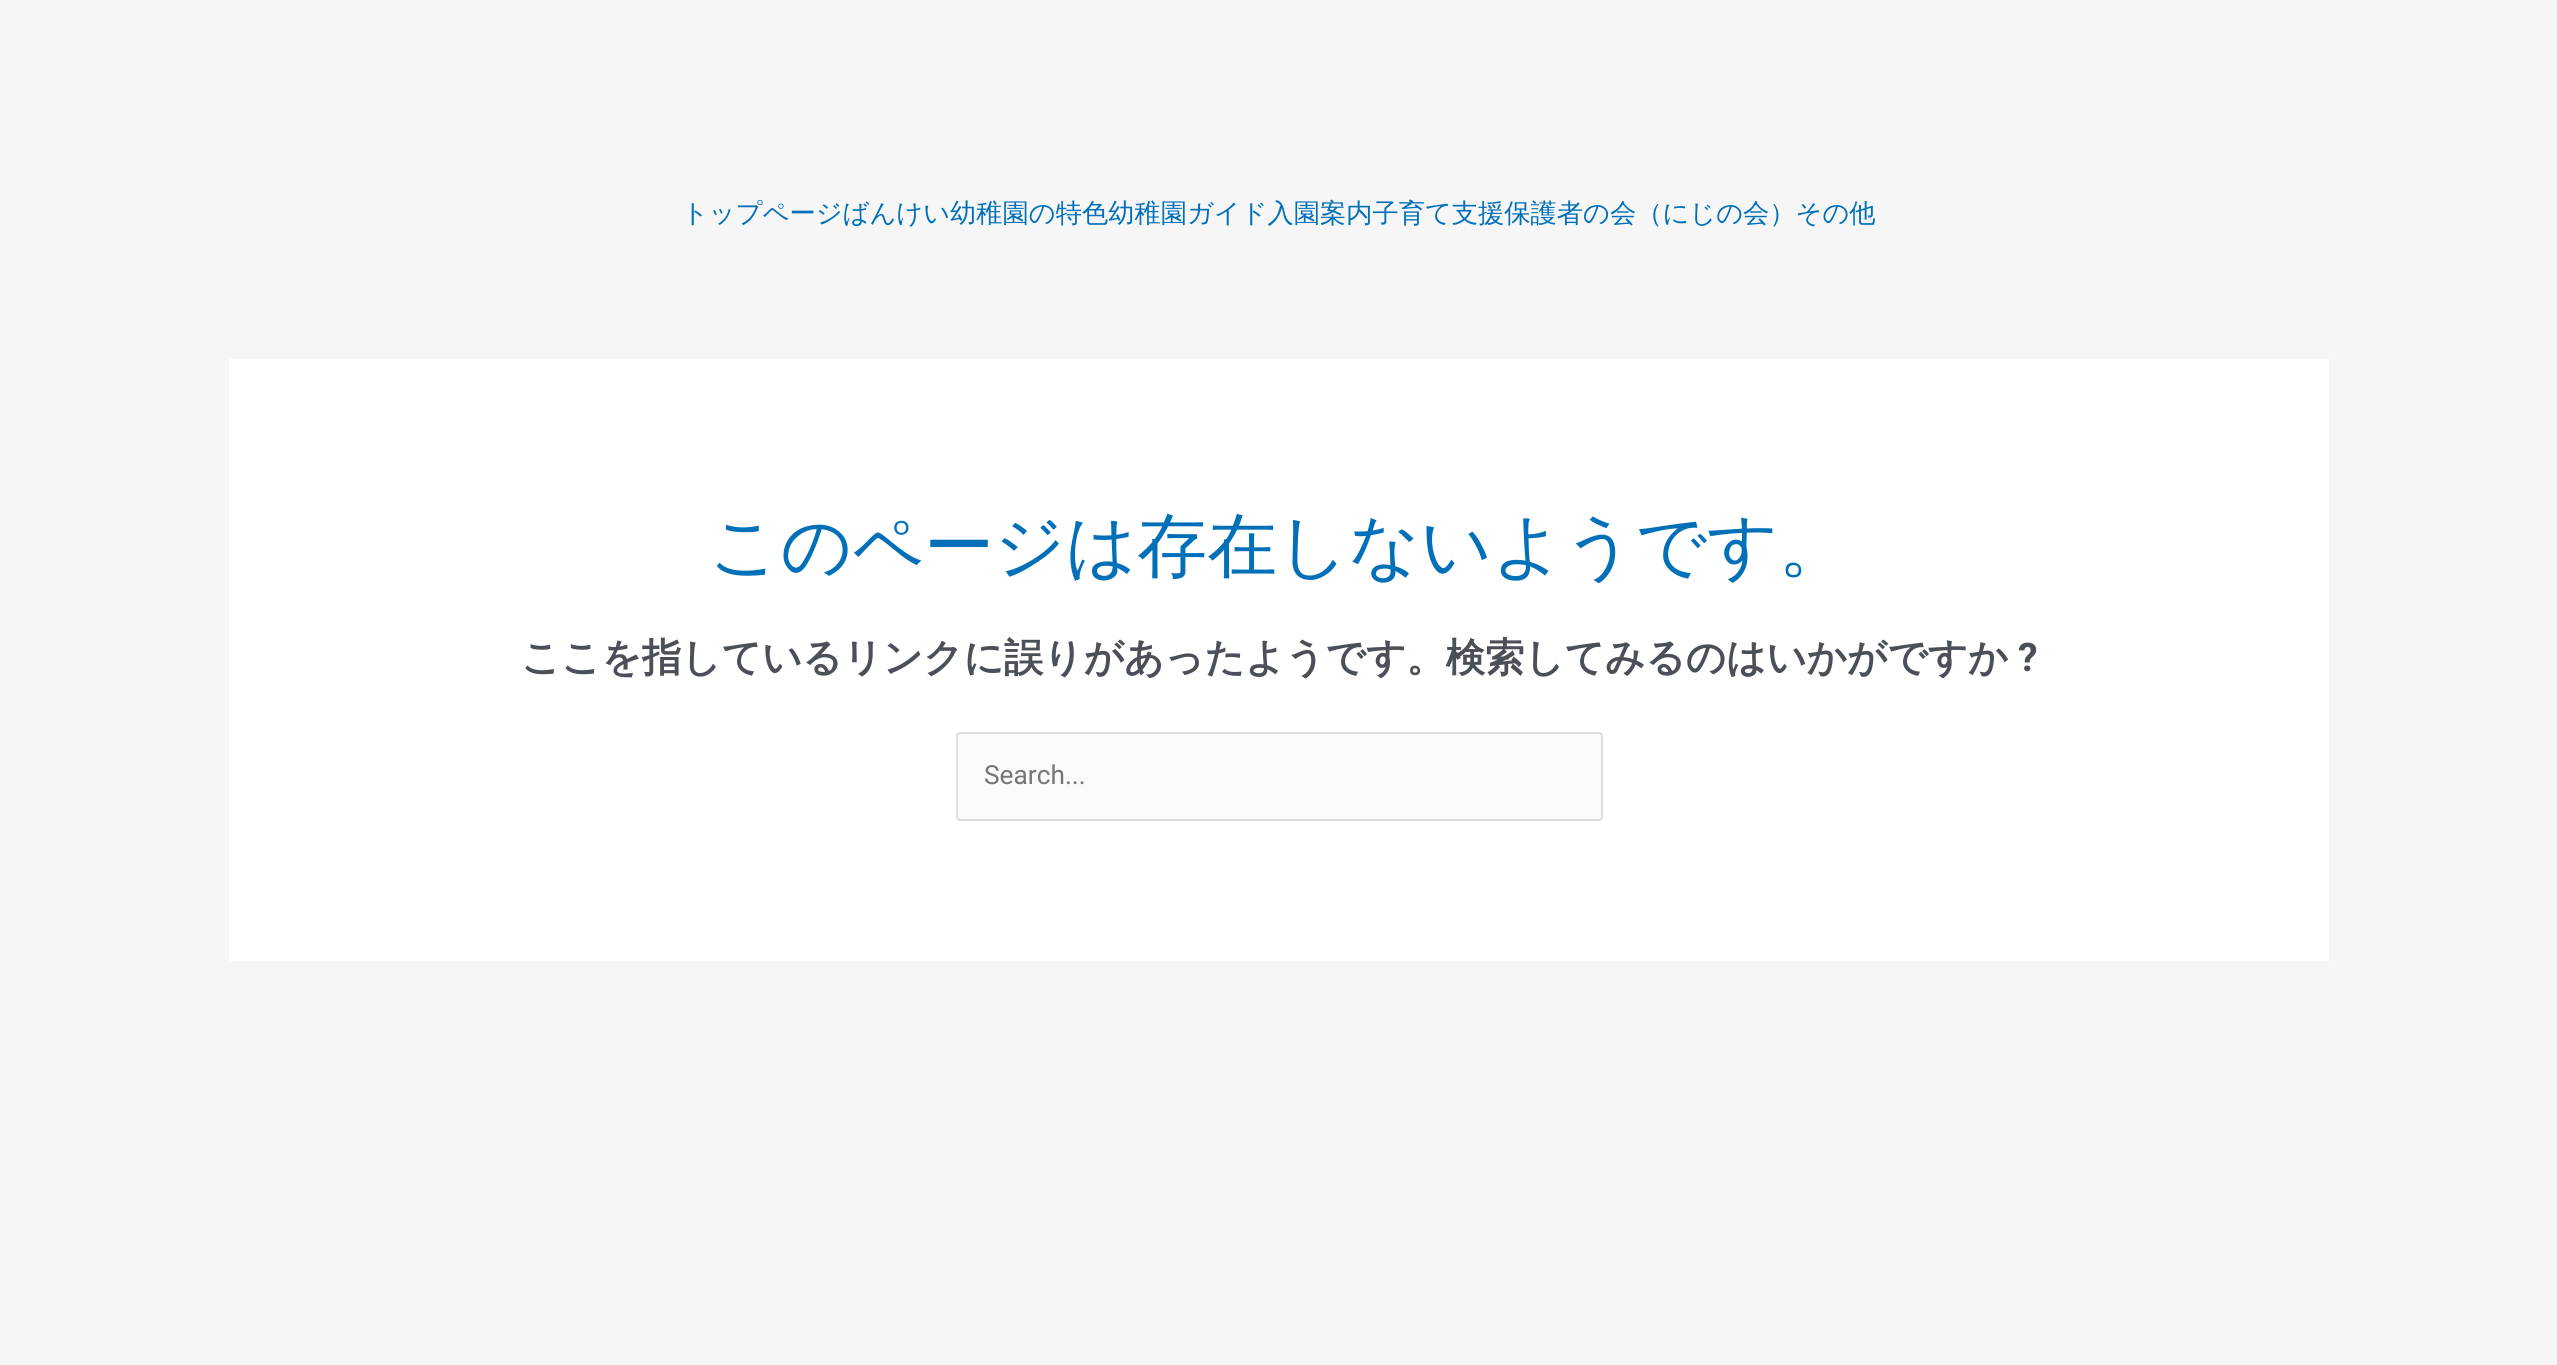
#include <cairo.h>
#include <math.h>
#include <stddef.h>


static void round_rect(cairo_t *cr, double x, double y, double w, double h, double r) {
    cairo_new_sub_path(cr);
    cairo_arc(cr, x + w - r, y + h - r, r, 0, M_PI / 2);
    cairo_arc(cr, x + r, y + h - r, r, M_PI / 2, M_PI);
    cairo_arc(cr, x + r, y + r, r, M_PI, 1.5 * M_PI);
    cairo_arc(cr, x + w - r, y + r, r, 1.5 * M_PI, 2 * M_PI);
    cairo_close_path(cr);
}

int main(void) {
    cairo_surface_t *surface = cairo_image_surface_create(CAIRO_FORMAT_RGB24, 2557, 1365);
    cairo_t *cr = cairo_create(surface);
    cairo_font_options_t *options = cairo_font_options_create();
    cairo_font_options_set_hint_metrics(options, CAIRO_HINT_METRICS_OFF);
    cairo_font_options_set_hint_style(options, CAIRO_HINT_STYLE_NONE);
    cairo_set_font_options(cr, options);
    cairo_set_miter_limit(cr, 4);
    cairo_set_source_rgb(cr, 0.961, 0.961, 0.961);
    cairo_paint(cr);
    cairo_select_font_face(cr, "WenQuanYi Zen Hei Medium", CAIRO_FONT_SLANT_NORMAL, CAIRO_FONT_WEIGHT_NORMAL);
    cairo_set_font_size(cr, 26.25);
    cairo_set_source_rgb(cr, 0.004, 0.439, 0.725);
    cairo_move_to(cr, 682, 222);
    cairo_show_text(cr, "トップページばんけい幼稚園の特色幼稚園ガイド入園案内子育て支援保護者の会（にじの会）その他");
    cairo_set_source_rgb(cr, 1, 1, 1);
    cairo_rectangle(cr, 229, 359, 2100, 602);
    cairo_fill(cr);
    cairo_set_font_size(cr, 70);
    cairo_set_source_rgb(cr, 0.004, 0.439, 0.725);
    cairo_move_to(cr, 709, 570);
    cairo_show_text(cr, "このページは存在しないようです。");
    cairo_select_font_face(cr, "WenQuanYi Zen Hei", CAIRO_FONT_SLANT_NORMAL, CAIRO_FONT_WEIGHT_BOLD);
    cairo_set_font_size(cr, 39.4);
    cairo_set_source_rgb(cr, 0.294, 0.31, 0.345);
    cairo_move_to(cr, 521, 671);
    cairo_show_text(cr, "ここを指しているリンクに誤りがあったようです。検索してみるのはいかがですか");
    cairo_select_font_face(cr, "Roboto", CAIRO_FONT_SLANT_NORMAL, CAIRO_FONT_WEIGHT_BOLD);
    cairo_move_to(cr, 2018, 671);
    cairo_show_text(cr, "?");
    cairo_set_source_rgb(cr, 0.98, 0.98, 0.98);
    round_rect(cr, 957, 733, 645, 87, 3);
    cairo_fill_preserve(cr);
    cairo_set_source_rgb(cr, 0.867, 0.867, 0.867);
    cairo_stroke(cr);
    cairo_select_font_face(cr, "Roboto", CAIRO_FONT_SLANT_NORMAL, CAIRO_FONT_WEIGHT_NORMAL);
    cairo_set_font_size(cr, 26.25);
    cairo_set_source_rgb(cr, 0.459, 0.459, 0.459);
    cairo_move_to(cr, 984, 784);
    cairo_show_text(cr, "Search...");
    cairo_surface_write_to_png(surface, "page.png");
    cairo_font_options_destroy(options);
    cairo_destroy(cr);
    cairo_surface_destroy(surface);
    return 0;
}
